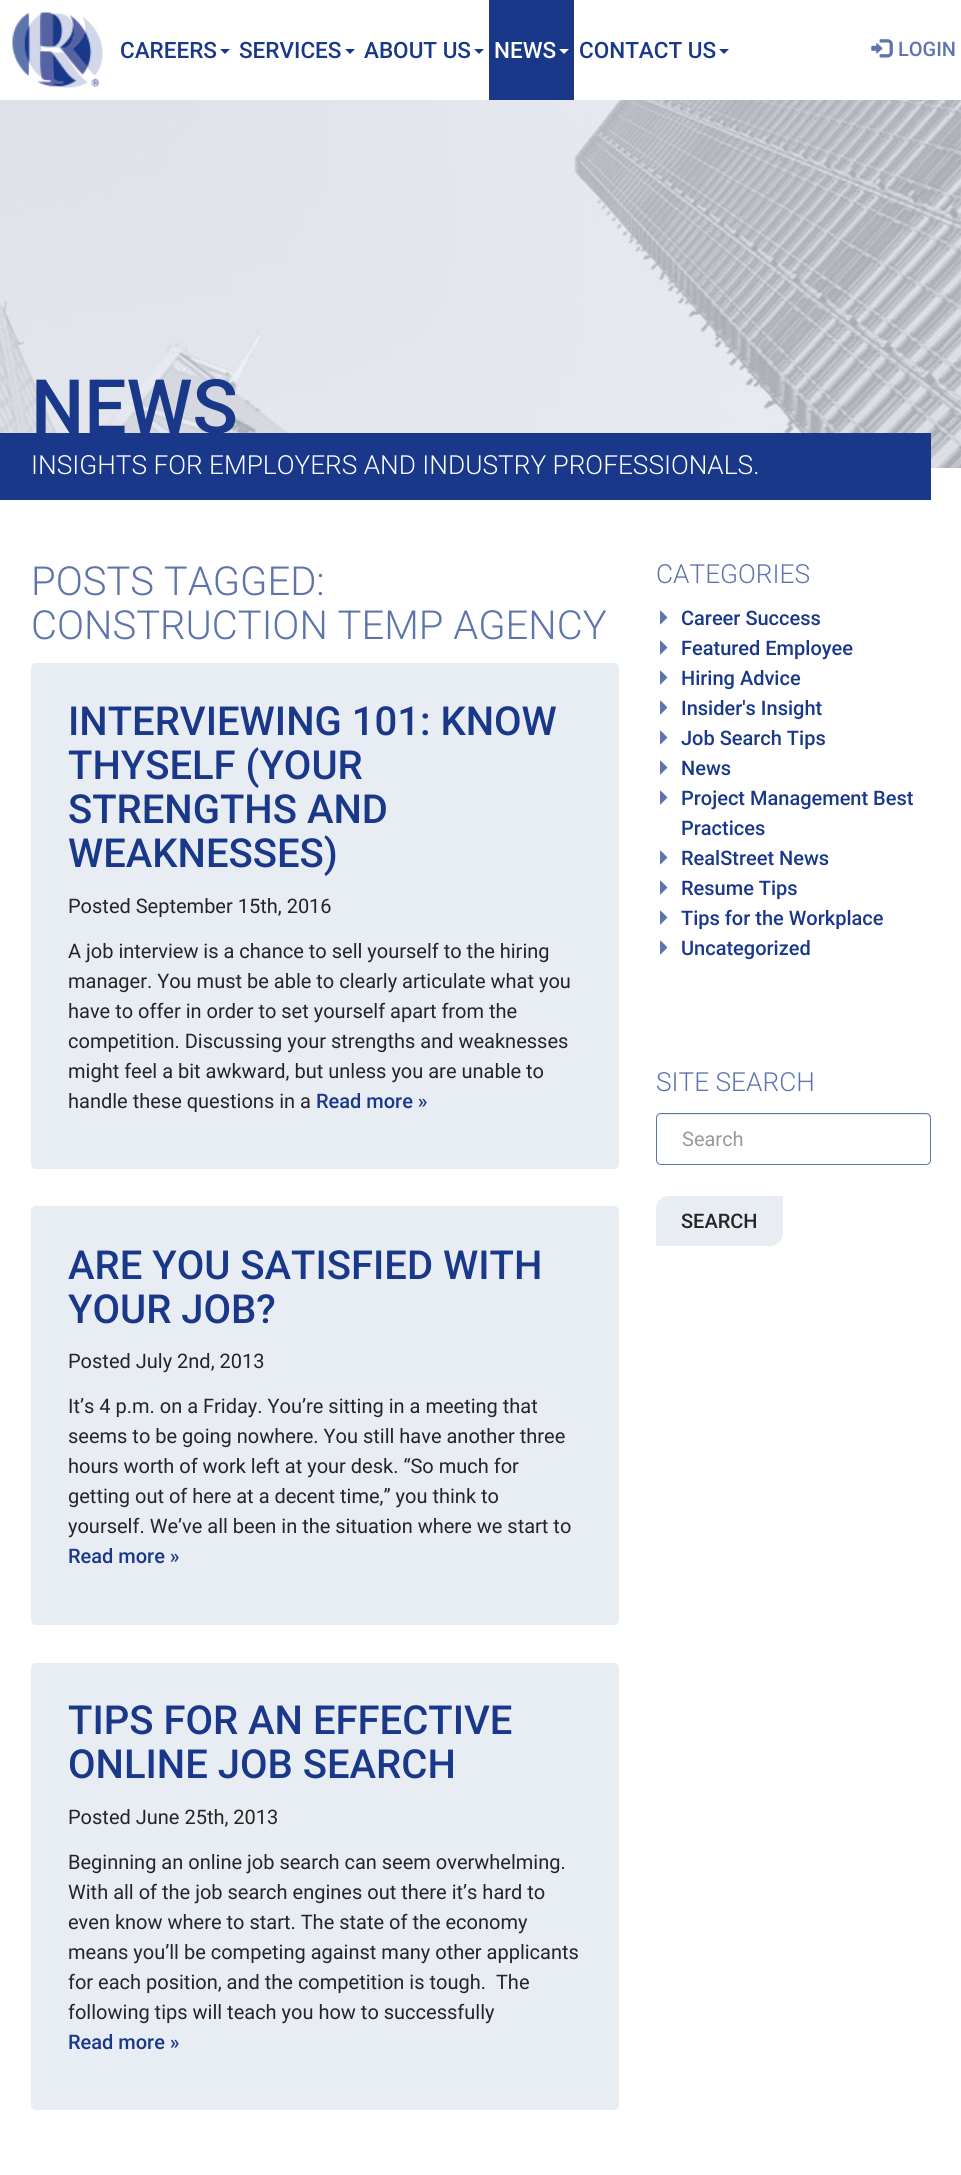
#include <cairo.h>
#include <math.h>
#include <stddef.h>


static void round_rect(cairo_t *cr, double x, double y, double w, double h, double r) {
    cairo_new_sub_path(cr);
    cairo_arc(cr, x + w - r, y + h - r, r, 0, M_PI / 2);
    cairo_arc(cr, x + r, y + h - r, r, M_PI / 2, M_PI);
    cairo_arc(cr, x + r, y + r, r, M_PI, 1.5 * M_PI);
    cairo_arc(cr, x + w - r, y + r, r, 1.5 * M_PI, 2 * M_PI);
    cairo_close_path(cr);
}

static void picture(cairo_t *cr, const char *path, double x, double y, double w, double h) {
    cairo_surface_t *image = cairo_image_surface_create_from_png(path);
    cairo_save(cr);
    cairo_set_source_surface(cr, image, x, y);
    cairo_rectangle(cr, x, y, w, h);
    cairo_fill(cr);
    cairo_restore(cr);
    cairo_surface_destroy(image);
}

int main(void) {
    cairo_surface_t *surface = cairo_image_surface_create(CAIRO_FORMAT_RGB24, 961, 2175);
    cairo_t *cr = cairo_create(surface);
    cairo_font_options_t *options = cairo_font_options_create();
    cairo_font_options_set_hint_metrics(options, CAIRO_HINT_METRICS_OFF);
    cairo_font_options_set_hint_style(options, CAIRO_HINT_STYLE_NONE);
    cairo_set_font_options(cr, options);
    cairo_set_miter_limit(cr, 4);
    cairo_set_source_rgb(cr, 1, 1, 1);
    cairo_paint(cr);
    picture(cr, "img1.png", 12, 12, 91, 76);
    cairo_select_font_face(cr, "Roboto Medium", CAIRO_FONT_SLANT_NORMAL, CAIRO_FONT_WEIGHT_NORMAL);
    cairo_set_font_size(cr, 22.5);
    cairo_set_source_rgb(cr, 0.098, 0.22, 0.537);
    cairo_move_to(cr, 120, 58);
    cairo_show_text(cr, "CAREERS");
    cairo_new_path(cr);
    cairo_move_to(cr, 220, 49);
    cairo_line_to(cr, 230, 49);
    cairo_line_to(cr, 225, 54);
    cairo_close_path(cr);
    cairo_fill(cr);
    cairo_move_to(cr, 239, 58);
    cairo_show_text(cr, "SERVICES");
    cairo_new_path(cr);
    cairo_move_to(cr, 345, 49);
    cairo_line_to(cr, 355, 49);
    cairo_line_to(cr, 350, 54);
    cairo_close_path(cr);
    cairo_fill(cr);
    cairo_move_to(cr, 364, 58);
    cairo_show_text(cr, "ABOUT US");
    cairo_new_path(cr);
    cairo_move_to(cr, 474, 49);
    cairo_line_to(cr, 484, 49);
    cairo_line_to(cr, 479, 54);
    cairo_close_path(cr);
    cairo_fill(cr);
    cairo_rectangle(cr, 489, 0, 85, 100);
    cairo_fill(cr);
    cairo_set_source_rgb(cr, 1, 1, 1);
    cairo_move_to(cr, 494, 58);
    cairo_show_text(cr, "NEWS");
    cairo_new_path(cr);
    cairo_move_to(cr, 559, 49);
    cairo_line_to(cr, 569, 49);
    cairo_line_to(cr, 564, 54);
    cairo_close_path(cr);
    cairo_fill(cr);
    cairo_set_source_rgb(cr, 0.098, 0.22, 0.537);
    cairo_move_to(cr, 579, 58);
    cairo_show_text(cr, "CONTACT US");
    cairo_new_path(cr);
    cairo_move_to(cr, 719, 49);
    cairo_line_to(cr, 729, 49);
    cairo_line_to(cr, 724, 54);
    cairo_close_path(cr);
    cairo_fill(cr);
    picture(cr, "img2.png", 871, 39, 22, 19);
    cairo_set_font_size(cr, 20);
    cairo_set_source_rgb(cr, 0.369, 0.455, 0.678);
    cairo_move_to(cr, 898, 56);
    cairo_show_text(cr, "LOGIN");
    picture(cr, "img3.png", 0, 100, 961, 368);
    cairo_set_source_rgba(cr, 0.91, 0.922, 0.953, 0.7);
    cairo_rectangle(cr, 0, 100, 961, 368);
    cairo_fill(cr);
    cairo_set_source_rgb(cr, 0.098, 0.22, 0.537);
    cairo_rectangle(cr, 0, 433, 31, 67);
    cairo_fill(cr);
    cairo_set_font_size(cr, 75);
    cairo_move_to(cr, 31, 433);
    cairo_show_text(cr, "NEWS");
    cairo_rectangle(cr, 31, 433, 900, 67);
    cairo_fill(cr);
    cairo_select_font_face(cr, "Roboto Light", CAIRO_FONT_SLANT_NORMAL, CAIRO_FONT_WEIGHT_NORMAL);
    cairo_set_font_size(cr, 26.25);
    cairo_set_source_rgb(cr, 1, 1, 1);
    cairo_move_to(cr, 31, 474);
    cairo_show_text(cr, "INSIGHTS FOR EMPLOYERS AND INDUSTRY PROFESSIONALS.");
    cairo_set_font_size(cr, 40);
    cairo_set_source_rgb(cr, 0.369, 0.455, 0.678);
    cairo_move_to(cr, 31, 595);
    cairo_show_text(cr, "POSTS TAGGED:");
    cairo_move_to(cr, 31, 639);
    cairo_show_text(cr, "CONSTRUCTION TEMP AGENCY");
    cairo_set_source_rgb(cr, 0.91, 0.922, 0.953);
    round_rect(cr, 31, 663, 588, 506, 5);
    cairo_fill(cr);
    cairo_select_font_face(cr, "Roboto Medium", CAIRO_FONT_SLANT_NORMAL, CAIRO_FONT_WEIGHT_NORMAL);
    cairo_set_source_rgb(cr, 0.098, 0.22, 0.537);
    cairo_move_to(cr, 68, 735);
    cairo_show_text(cr, "INTERVIEWING 101: KNOW");
    cairo_move_to(cr, 68, 779);
    cairo_show_text(cr, "THYSELF (YOUR");
    cairo_move_to(cr, 68, 823);
    cairo_show_text(cr, "STRENGTHS AND");
    cairo_move_to(cr, 68, 867);
    cairo_show_text(cr, "WEAKNESSES)");
    cairo_select_font_face(cr, "Roboto", CAIRO_FONT_SLANT_NORMAL, CAIRO_FONT_WEIGHT_NORMAL);
    cairo_set_font_size(cr, 20);
    cairo_set_source_rgb(cr, 0.145, 0.145, 0.145);
    cairo_move_to(cr, 68, 913);
    cairo_show_text(cr, "Posted September 15th, 2016");
    cairo_move_to(cr, 68, 958);
    cairo_show_text(cr, "A job interview is a chance to sell yourself to the hiring");
    cairo_move_to(cr, 68, 988);
    cairo_show_text(cr, "manager. You must be able to clearly articulate what you");
    cairo_move_to(cr, 68, 1018);
    cairo_show_text(cr, "have to offer in order to set yourself apart from the");
    cairo_move_to(cr, 68, 1048);
    cairo_show_text(cr, "competition. Discussing your strengths and weaknesses");
    cairo_move_to(cr, 68, 1078);
    cairo_show_text(cr, "might feel a bit awkward, but unless you are unable to");
    cairo_move_to(cr, 68, 1108);
    cairo_show_text(cr, "handle these questions in a");
    cairo_select_font_face(cr, "Roboto Medium", CAIRO_FONT_SLANT_NORMAL, CAIRO_FONT_WEIGHT_NORMAL);
    cairo_set_source_rgb(cr, 0.098, 0.22, 0.537);
    cairo_move_to(cr, 316, 1108);
    cairo_show_text(cr, "Read more »");
    cairo_set_source_rgb(cr, 0.91, 0.922, 0.953);
    round_rect(cr, 31, 1206, 588, 419, 5);
    cairo_fill(cr);
    cairo_set_font_size(cr, 40);
    cairo_set_source_rgb(cr, 0.098, 0.22, 0.537);
    cairo_move_to(cr, 68, 1279);
    cairo_show_text(cr, "ARE YOU SATISFIED WITH");
    cairo_move_to(cr, 68, 1323);
    cairo_show_text(cr, "YOUR JOB?");
    cairo_select_font_face(cr, "Roboto", CAIRO_FONT_SLANT_NORMAL, CAIRO_FONT_WEIGHT_NORMAL);
    cairo_set_font_size(cr, 20);
    cairo_set_source_rgb(cr, 0.145, 0.145, 0.145);
    cairo_move_to(cr, 68, 1368);
    cairo_show_text(cr, "Posted July 2nd, 2013");
    cairo_move_to(cr, 68, 1413);
    cairo_show_text(cr, "It’s 4 p.m. on a Friday. You’re sitting in a meeting that");
    cairo_move_to(cr, 68, 1443);
    cairo_show_text(cr, "seems to be going nowhere. You still have another three");
    cairo_move_to(cr, 68, 1473);
    cairo_show_text(cr, "hours worth of work left at your desk. “So much for");
    cairo_move_to(cr, 68, 1503);
    cairo_show_text(cr, "getting out of here at a decent time,” you think to");
    cairo_move_to(cr, 68, 1533);
    cairo_show_text(cr, "yourself. We’ve all been in the situation where we start to");
    cairo_select_font_face(cr, "Roboto Medium", CAIRO_FONT_SLANT_NORMAL, CAIRO_FONT_WEIGHT_NORMAL);
    cairo_set_source_rgb(cr, 0.098, 0.22, 0.537);
    cairo_move_to(cr, 68, 1563);
    cairo_show_text(cr, "Read more »");
    cairo_set_source_rgb(cr, 0.91, 0.922, 0.953);
    round_rect(cr, 31, 1663, 588, 447, 5);
    cairo_fill(cr);
    cairo_set_font_size(cr, 40);
    cairo_set_source_rgb(cr, 0.098, 0.22, 0.537);
    cairo_move_to(cr, 68, 1734);
    cairo_show_text(cr, "TIPS FOR AN EFFECTIVE");
    cairo_move_to(cr, 68, 1778);
    cairo_show_text(cr, "ONLINE JOB SEARCH");
    cairo_select_font_face(cr, "Roboto", CAIRO_FONT_SLANT_NORMAL, CAIRO_FONT_WEIGHT_NORMAL);
    cairo_set_font_size(cr, 20);
    cairo_set_source_rgb(cr, 0.145, 0.145, 0.145);
    cairo_move_to(cr, 68, 1824);
    cairo_show_text(cr, "Posted June 25th, 2013");
    cairo_move_to(cr, 68, 1869);
    cairo_show_text(cr, "Beginning an online job search can seem overwhelming.");
    cairo_move_to(cr, 68, 1899);
    cairo_show_text(cr, "With all of the job search engines out there it’s hard to");
    cairo_move_to(cr, 68, 1929);
    cairo_show_text(cr, "even know where to start. The state of the economy");
    cairo_move_to(cr, 68, 1959);
    cairo_show_text(cr, "means you’ll be competing against many other applicants");
    cairo_move_to(cr, 68, 1989);
    cairo_show_text(cr, "for each position, and the competition is tough.  The");
    cairo_move_to(cr, 68, 2019);
    cairo_show_text(cr, "following tips will teach you how to successfully");
    cairo_select_font_face(cr, "Roboto Medium", CAIRO_FONT_SLANT_NORMAL, CAIRO_FONT_WEIGHT_NORMAL);
    cairo_set_source_rgb(cr, 0.098, 0.22, 0.537);
    cairo_move_to(cr, 68, 2049);
    cairo_show_text(cr, "Read more »");
    cairo_select_font_face(cr, "Roboto Light", CAIRO_FONT_SLANT_NORMAL, CAIRO_FONT_WEIGHT_NORMAL);
    cairo_set_font_size(cr, 26.25);
    cairo_set_source_rgb(cr, 0.369, 0.455, 0.678);
    cairo_move_to(cr, 656, 583);
    cairo_show_text(cr, "CATEGORIES");
    picture(cr, "img4.png", 660, 610, 8, 15);
    cairo_select_font_face(cr, "Roboto Medium", CAIRO_FONT_SLANT_NORMAL, CAIRO_FONT_WEIGHT_NORMAL);
    cairo_set_font_size(cr, 20);
    cairo_set_source_rgb(cr, 0.098, 0.22, 0.537);
    cairo_move_to(cr, 681, 625);
    cairo_show_text(cr, "Career Success");
    picture(cr, "img4.png", 660, 640, 8, 15);
    cairo_move_to(cr, 681, 655);
    cairo_show_text(cr, "Featured Employee");
    picture(cr, "img4.png", 660, 670, 8, 15);
    cairo_move_to(cr, 681, 685);
    cairo_show_text(cr, "Hiring Advice");
    picture(cr, "img4.png", 660, 700, 8, 15);
    cairo_move_to(cr, 681, 715);
    cairo_show_text(cr, "Insider's Insight");
    picture(cr, "img4.png", 660, 730, 8, 15);
    cairo_move_to(cr, 681, 745);
    cairo_show_text(cr, "Job Search Tips");
    picture(cr, "img4.png", 660, 760, 8, 15);
    cairo_move_to(cr, 681, 775);
    cairo_show_text(cr, "News");
    picture(cr, "img4.png", 660, 790, 8, 15);
    cairo_move_to(cr, 681, 805);
    cairo_show_text(cr, "Project Management Best");
    cairo_move_to(cr, 681, 835);
    cairo_show_text(cr, "Practices");
    picture(cr, "img4.png", 660, 850, 8, 15);
    cairo_move_to(cr, 681, 865);
    cairo_show_text(cr, "RealStreet News");
    picture(cr, "img4.png", 660, 880, 8, 15);
    cairo_move_to(cr, 681, 895);
    cairo_show_text(cr, "Resume Tips");
    picture(cr, "img4.png", 660, 910, 8, 15);
    cairo_move_to(cr, 681, 925);
    cairo_show_text(cr, "Tips for the Workplace");
    picture(cr, "img4.png", 660, 940, 8, 15);
    cairo_move_to(cr, 681, 955);
    cairo_show_text(cr, "Uncategorized");
    cairo_select_font_face(cr, "Roboto Light", CAIRO_FONT_SLANT_NORMAL, CAIRO_FONT_WEIGHT_NORMAL);
    cairo_set_font_size(cr, 26.25);
    cairo_set_source_rgb(cr, 0.369, 0.455, 0.678);
    cairo_move_to(cr, 656, 1091);
    cairo_show_text(cr, "SITE SEARCH");
    cairo_set_source_rgb(cr, 0.925, 0.925, 0.925);
    cairo_new_path(cr);
    cairo_move_to(cr, 661, 1115);
    cairo_line_to(cr, 926, 1115);
    cairo_curve_to(cr, 928, 1115, 930, 1117, 930, 1119);
    cairo_curve_to(cr, 930, 1116, 929, 1114, 926, 1114);
    cairo_line_to(cr, 662, 1114);
    cairo_curve_to(cr, 659, 1114, 658, 1116, 658, 1119);
    cairo_curve_to(cr, 658, 1117, 659, 1115, 661, 1115);
    cairo_close_path(cr);
    cairo_fill(cr);
    round_rect(cr, 656.5, 1113.5, 274, 51, 4.5);
    cairo_set_source_rgb(cr, 0.369, 0.455, 0.678);
    cairo_set_line_width(cr, 1);
    cairo_stroke(cr);
    cairo_select_font_face(cr, "Roboto", CAIRO_FONT_SLANT_NORMAL, CAIRO_FONT_WEIGHT_NORMAL);
    cairo_set_font_size(cr, 20);
    cairo_set_source_rgb(cr, 0.6, 0.6, 0.6);
    cairo_move_to(cr, 682, 1146);
    cairo_show_text(cr, "Search");
    cairo_set_source_rgb(cr, 0.91, 0.922, 0.953);
    cairo_new_path(cr);
    cairo_move_to(cr, 669, 1196);
    cairo_line_to(cr, 783, 1196);
    cairo_line_to(cr, 783, 1233);
    cairo_curve_to(cr, 783, 1240, 777, 1246, 770, 1246);
    cairo_line_to(cr, 656, 1246);
    cairo_line_to(cr, 656, 1209);
    cairo_curve_to(cr, 656, 1202, 662, 1196, 669, 1196);
    cairo_close_path(cr);
    cairo_fill(cr);
    cairo_select_font_face(cr, "Roboto Medium", CAIRO_FONT_SLANT_NORMAL, CAIRO_FONT_WEIGHT_NORMAL);
    cairo_set_source_rgb(cr, 0.145, 0.145, 0.145);
    cairo_move_to(cr, 681, 1228);
    cairo_show_text(cr, "SEARCH");
    cairo_surface_write_to_png(surface, "page.png");
    cairo_font_options_destroy(options);
    cairo_destroy(cr);
    cairo_surface_destroy(surface);
    return 0;
}
